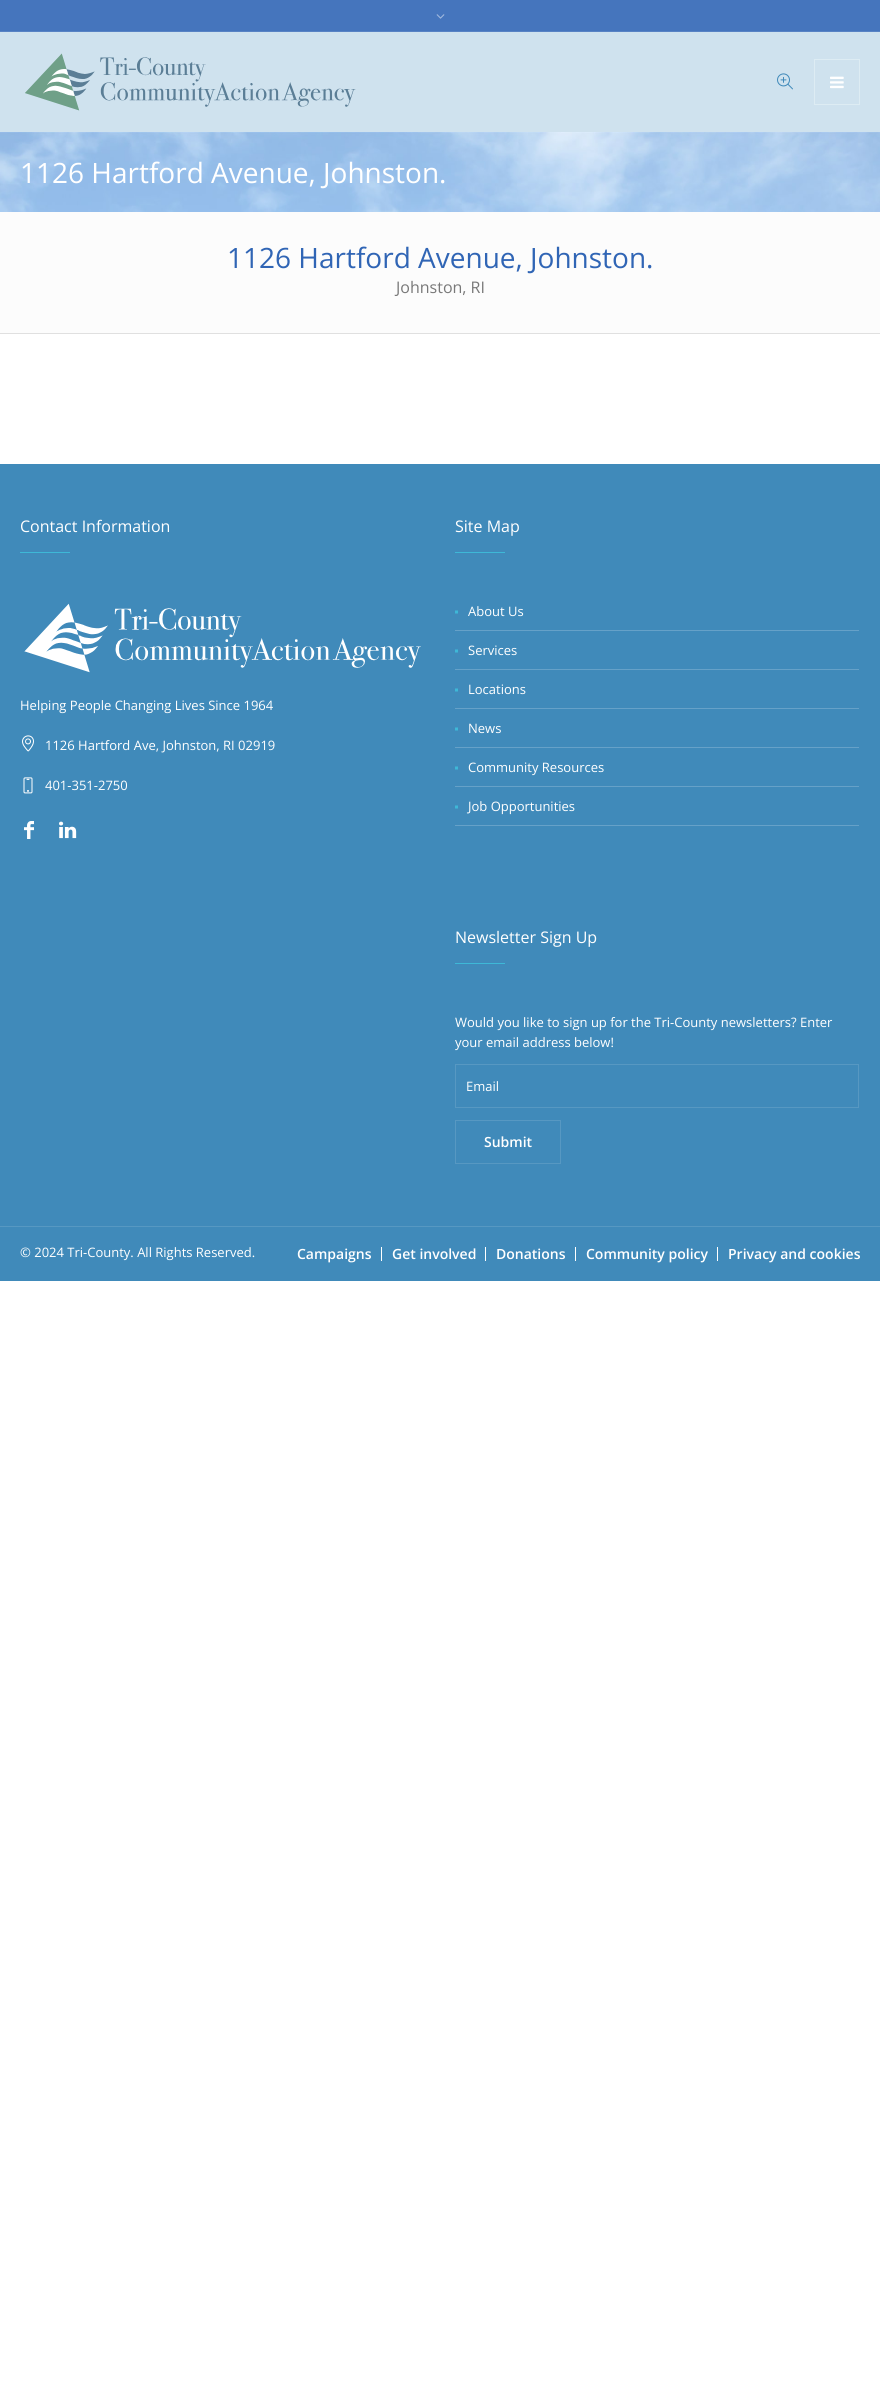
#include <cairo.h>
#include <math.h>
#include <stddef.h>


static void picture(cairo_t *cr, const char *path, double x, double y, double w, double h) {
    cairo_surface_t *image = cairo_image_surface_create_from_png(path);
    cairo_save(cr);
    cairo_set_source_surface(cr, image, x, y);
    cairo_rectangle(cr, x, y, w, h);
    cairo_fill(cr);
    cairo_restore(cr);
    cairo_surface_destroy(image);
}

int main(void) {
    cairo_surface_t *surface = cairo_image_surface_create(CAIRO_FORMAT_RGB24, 880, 2406);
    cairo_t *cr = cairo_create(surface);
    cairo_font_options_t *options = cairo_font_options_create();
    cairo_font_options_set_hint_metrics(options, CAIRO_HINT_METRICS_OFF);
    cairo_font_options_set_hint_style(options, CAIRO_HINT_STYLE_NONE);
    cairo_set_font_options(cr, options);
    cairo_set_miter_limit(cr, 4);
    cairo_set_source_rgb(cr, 1, 1, 1);
    cairo_paint(cr);
    cairo_set_source_rgb(cr, 0.271, 0.459, 0.741);
    cairo_rectangle(cr, 0, 0, 880, 31);
    cairo_fill(cr);
    cairo_set_source_rgb(cr, 0.345, 0.514, 0.769);
    cairo_rectangle(cr, 0, 31, 880, 1);
    cairo_fill(cr);
    picture(cr, "img1.png", 436, 14, 9, 5);
    cairo_set_source_rgb(cr, 0.812, 0.886, 0.933);
    cairo_rectangle(cr, 0, 32, 880, 100);
    cairo_fill(cr);
    picture(cr, "img2.png", 25, 53, 331, 58);
    picture(cr, "img3.png", 777, 73, 16, 17);
    cairo_rectangle(cr, 814.5, 59.5, 45, 45);
    cairo_set_source_rgb(cr, 0.867, 0.922, 0.953);
    cairo_set_line_width(cr, 1);
    cairo_stroke(cr);
    picture(cr, "img4.png", 830, 76, 14, 13);
    picture(cr, "img5.png", 0, 132, 880, 80);
    cairo_select_font_face(cr, "Open Sans", CAIRO_FONT_SLANT_NORMAL, CAIRO_FONT_WEIGHT_NORMAL);
    cairo_set_font_size(cr, 28);
    cairo_set_source_rgb(cr, 1, 1, 1);
    cairo_move_to(cr, 20, 183);
    cairo_show_text(cr, "1126 Hartford Avenue, Johnston.");
    cairo_set_source_rgb(cr, 0.988, 0.988, 0.988);
    cairo_rectangle(cr, 0, 212, 880, 121);
    cairo_fill(cr);
    cairo_set_source_rgb(cr, 0.878, 0.878, 0.878);
    cairo_rectangle(cr, 0, 333, 880, 1);
    cairo_fill(cr);
    cairo_set_source_rgb(cr, 0.188, 0.396, 0.71);
    cairo_move_to(cr, 227, 268);
    cairo_show_text(cr, "1126 Hartford Avenue, Johnston.");
    cairo_set_font_size(cr, 16);
    cairo_set_source_rgb(cr, 0.471, 0.471, 0.471);
    cairo_move_to(cr, 396, 293);
    cairo_show_text(cr, "Johnston, RI");
    cairo_set_source_rgb(cr, 0.251, 0.541, 0.729);
    cairo_rectangle(cr, 0, 464, 880, 762);
    cairo_fill(cr);
    cairo_set_source_rgb(cr, 1, 1, 1);
    cairo_move_to(cr, 20, 532);
    cairo_show_text(cr, "Contact Information");
    cairo_set_source_rgb(cr, 0.243, 0.722, 0.843);
    cairo_rectangle(cr, 20, 552, 50, 1);
    cairo_fill(cr);
    picture(cr, "img6.png", 24, 603, 397, 70);
    cairo_set_font_size(cr, 13);
    cairo_set_source_rgb(cr, 1, 1, 1);
    cairo_move_to(cr, 20, 710);
    cairo_show_text(cr, "Helping People Changing Lives Since 1964");
    picture(cr, "img7.png", 22, 735, 12, 17);
    cairo_move_to(cr, 45, 750);
    cairo_show_text(cr, "1126 Hartford Ave, Johnston, RI 02919");
    picture(cr, "img8.png", 23, 777, 10, 17);
    cairo_move_to(cr, 45, 790);
    cairo_show_text(cr, "401-351-2750");
    picture(cr, "img9.png", 24, 821, 10, 18);
    picture(cr, "img10.png", 59, 821, 18, 18);
    cairo_set_font_size(cr, 16);
    cairo_move_to(cr, 455, 532);
    cairo_show_text(cr, "Site Map");
    cairo_set_source_rgb(cr, 0.243, 0.722, 0.843);
    cairo_rectangle(cr, 455, 552, 50, 1);
    cairo_fill(cr);
    cairo_set_source_rgb(cr, 0.4, 0.631, 0.784);
    cairo_rectangle(cr, 455, 630, 404, 1);
    cairo_fill(cr);
    cairo_set_source_rgb(cr, 0.243, 0.722, 0.843);
    cairo_new_path(cr);
    cairo_move_to(cr, 458, 610.5);
    cairo_line_to(cr, 458, 613.5);
    cairo_line_to(cr, 455, 613.5);
    cairo_line_to(cr, 455, 610.5);
    cairo_close_path(cr);
    cairo_fill(cr);
    cairo_set_font_size(cr, 13);
    cairo_set_source_rgb(cr, 1, 1, 1);
    cairo_move_to(cr, 468, 616);
    cairo_show_text(cr, "About Us");
    cairo_set_source_rgb(cr, 0.4, 0.631, 0.784);
    cairo_rectangle(cr, 455, 669, 404, 1);
    cairo_fill(cr);
    cairo_set_source_rgb(cr, 0.243, 0.722, 0.843);
    cairo_new_path(cr);
    cairo_move_to(cr, 458, 649.5);
    cairo_line_to(cr, 458, 652.5);
    cairo_line_to(cr, 455, 652.5);
    cairo_line_to(cr, 455, 649.5);
    cairo_close_path(cr);
    cairo_fill(cr);
    cairo_set_source_rgb(cr, 1, 1, 1);
    cairo_move_to(cr, 468, 655);
    cairo_show_text(cr, "Services");
    cairo_set_source_rgb(cr, 0.4, 0.631, 0.784);
    cairo_rectangle(cr, 455, 708, 404, 1);
    cairo_fill(cr);
    cairo_set_source_rgb(cr, 0.243, 0.722, 0.843);
    cairo_new_path(cr);
    cairo_move_to(cr, 458, 688.5);
    cairo_line_to(cr, 458, 691.5);
    cairo_line_to(cr, 455, 691.5);
    cairo_line_to(cr, 455, 688.5);
    cairo_close_path(cr);
    cairo_fill(cr);
    cairo_set_source_rgb(cr, 1, 1, 1);
    cairo_move_to(cr, 468, 694);
    cairo_show_text(cr, "Locations");
    cairo_set_source_rgb(cr, 0.4, 0.631, 0.784);
    cairo_rectangle(cr, 455, 747, 404, 1);
    cairo_fill(cr);
    cairo_set_source_rgb(cr, 0.243, 0.722, 0.843);
    cairo_new_path(cr);
    cairo_move_to(cr, 458, 727.5);
    cairo_line_to(cr, 458, 730.5);
    cairo_line_to(cr, 455, 730.5);
    cairo_line_to(cr, 455, 727.5);
    cairo_close_path(cr);
    cairo_fill(cr);
    cairo_set_source_rgb(cr, 1, 1, 1);
    cairo_move_to(cr, 468, 733);
    cairo_show_text(cr, "News");
    cairo_set_source_rgb(cr, 0.4, 0.631, 0.784);
    cairo_rectangle(cr, 455, 786, 404, 1);
    cairo_fill(cr);
    cairo_set_source_rgb(cr, 0.243, 0.722, 0.843);
    cairo_new_path(cr);
    cairo_move_to(cr, 458, 766.5);
    cairo_line_to(cr, 458, 769.5);
    cairo_line_to(cr, 455, 769.5);
    cairo_line_to(cr, 455, 766.5);
    cairo_close_path(cr);
    cairo_fill(cr);
    cairo_set_source_rgb(cr, 1, 1, 1);
    cairo_move_to(cr, 468, 772);
    cairo_show_text(cr, "Community Resources");
    cairo_set_source_rgb(cr, 0.4, 0.631, 0.784);
    cairo_rectangle(cr, 455, 825, 404, 1);
    cairo_fill(cr);
    cairo_set_source_rgb(cr, 0.243, 0.722, 0.843);
    cairo_new_path(cr);
    cairo_move_to(cr, 458, 805.5);
    cairo_line_to(cr, 458, 808.5);
    cairo_line_to(cr, 455, 808.5);
    cairo_line_to(cr, 455, 805.5);
    cairo_close_path(cr);
    cairo_fill(cr);
    cairo_set_source_rgb(cr, 1, 1, 1);
    cairo_move_to(cr, 468, 811);
    cairo_show_text(cr, "Job Opportunities");
    cairo_set_font_size(cr, 16);
    cairo_move_to(cr, 455, 943);
    cairo_show_text(cr, "Newsletter Sign Up");
    cairo_set_source_rgb(cr, 0.243, 0.722, 0.843);
    cairo_rectangle(cr, 455, 963, 50, 1);
    cairo_fill(cr);
    cairo_set_font_size(cr, 13);
    cairo_set_source_rgb(cr, 1, 1, 1);
    cairo_move_to(cr, 455, 1027);
    cairo_show_text(cr, "Would you like to sign up for the Tri-County newsletters? Enter");
    cairo_move_to(cr, 455, 1047);
    cairo_show_text(cr, "your email address below!");
    cairo_rectangle(cr, 455.5, 1064.5, 403, 43);
    cairo_set_source_rgb(cr, 0.341, 0.596, 0.761);
    cairo_stroke(cr);
    cairo_set_source_rgb(cr, 1, 1, 1);
    cairo_move_to(cr, 466, 1091);
    cairo_show_text(cr, "Email");
    cairo_rectangle(cr, 455.5, 1120.5, 105, 43);
    cairo_set_source_rgb(cr, 0.341, 0.596, 0.761);
    cairo_stroke(cr);
    cairo_select_font_face(cr, "Open Sans SemiBold", CAIRO_FONT_SLANT_NORMAL, CAIRO_FONT_WEIGHT_NORMAL);
    cairo_set_font_size(cr, 14);
    cairo_set_source_rgb(cr, 1, 1, 1);
    cairo_move_to(cr, 484, 1147);
    cairo_show_text(cr, "Submit");
    cairo_set_source_rgb(cr, 0.251, 0.541, 0.729);
    cairo_rectangle(cr, 0, 1227, 880, 54);
    cairo_fill(cr);
    cairo_set_source_rgb(cr, 0.341, 0.596, 0.761);
    cairo_rectangle(cr, 0, 1226, 880, 1);
    cairo_fill(cr);
    cairo_select_font_face(cr, "Open Sans", CAIRO_FONT_SLANT_NORMAL, CAIRO_FONT_WEIGHT_NORMAL);
    cairo_set_font_size(cr, 13);
    cairo_set_source_rgb(cr, 1, 1, 1);
    cairo_move_to(cr, 20, 1257);
    cairo_show_text(cr, "© 2024 Tri-County. All Rights Reserved.");
    cairo_select_font_face(cr, "Open Sans SemiBold", CAIRO_FONT_SLANT_NORMAL, CAIRO_FONT_WEIGHT_NORMAL);
    cairo_set_font_size(cr, 14);
    cairo_move_to(cr, 297, 1259);
    cairo_show_text(cr, "Campaigns");
    cairo_rectangle(cr, 381, 1247, 1, 14);
    cairo_fill(cr);
    cairo_move_to(cr, 392, 1259);
    cairo_show_text(cr, "Get involved");
    cairo_rectangle(cr, 485, 1247, 1, 14);
    cairo_fill(cr);
    cairo_move_to(cr, 496, 1259);
    cairo_show_text(cr, "Donations");
    cairo_rectangle(cr, 575, 1247, 1, 14);
    cairo_fill(cr);
    cairo_move_to(cr, 586, 1259);
    cairo_show_text(cr, "Community policy");
    cairo_rectangle(cr, 717, 1247, 1, 14);
    cairo_fill(cr);
    cairo_move_to(cr, 728, 1259);
    cairo_show_text(cr, "Privacy and cookies");
    cairo_surface_write_to_png(surface, "page.png");
    cairo_font_options_destroy(options);
    cairo_destroy(cr);
    cairo_surface_destroy(surface);
    return 0;
}
